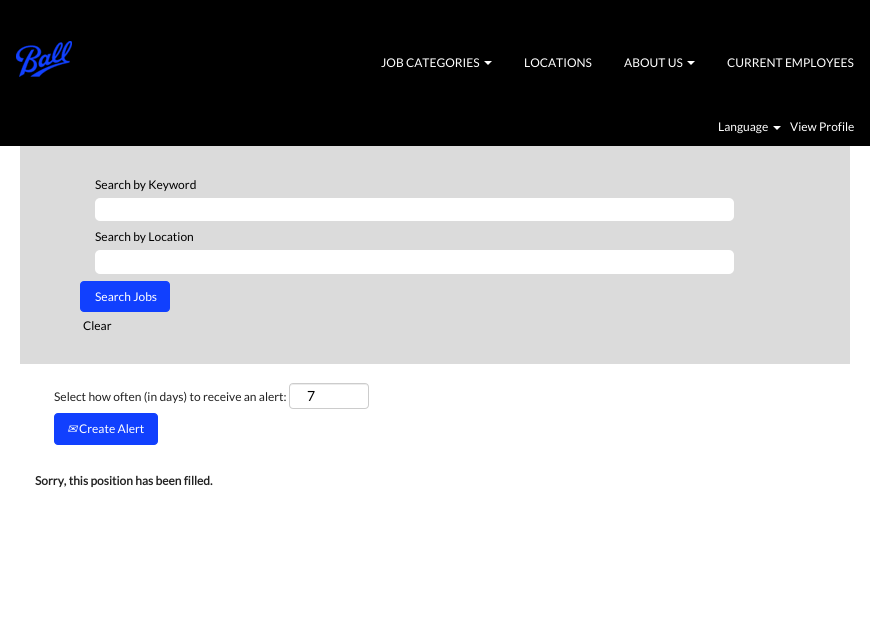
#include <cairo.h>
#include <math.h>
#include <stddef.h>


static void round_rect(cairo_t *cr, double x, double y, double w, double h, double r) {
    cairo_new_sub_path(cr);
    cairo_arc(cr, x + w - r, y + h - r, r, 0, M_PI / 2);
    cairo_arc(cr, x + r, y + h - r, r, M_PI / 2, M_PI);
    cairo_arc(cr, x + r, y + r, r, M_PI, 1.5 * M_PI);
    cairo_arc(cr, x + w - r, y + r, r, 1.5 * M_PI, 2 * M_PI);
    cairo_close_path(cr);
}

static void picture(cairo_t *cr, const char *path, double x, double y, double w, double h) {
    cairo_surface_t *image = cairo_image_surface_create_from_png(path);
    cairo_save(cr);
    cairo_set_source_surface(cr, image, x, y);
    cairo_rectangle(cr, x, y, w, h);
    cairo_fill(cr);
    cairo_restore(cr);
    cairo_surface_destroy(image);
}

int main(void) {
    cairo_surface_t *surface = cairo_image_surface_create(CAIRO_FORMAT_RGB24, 870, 634);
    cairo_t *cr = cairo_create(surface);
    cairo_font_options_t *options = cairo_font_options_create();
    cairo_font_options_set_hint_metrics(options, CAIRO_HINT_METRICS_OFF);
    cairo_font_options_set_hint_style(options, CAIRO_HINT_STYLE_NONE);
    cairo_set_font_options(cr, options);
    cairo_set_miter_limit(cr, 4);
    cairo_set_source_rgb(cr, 1, 1, 1);
    cairo_paint(cr);
    cairo_set_source_rgb(cr, 0, 0, 0);
    cairo_rectangle(cr, 0, 0, 870, 146);
    cairo_fill(cr);
    picture(cr, "img1.png", 16, 41, 56, 36);
    cairo_select_font_face(cr, "Lato", CAIRO_FONT_SLANT_NORMAL, CAIRO_FONT_WEIGHT_NORMAL);
    cairo_set_font_size(cr, 12);
    cairo_set_source_rgb(cr, 1, 1, 1);
    cairo_move_to(cr, 381, 67);
    cairo_show_text(cr, "JOB CATEGORIES");
    cairo_new_path(cr);
    cairo_move_to(cr, 484, 61);
    cairo_line_to(cr, 492, 61);
    cairo_line_to(cr, 488, 65);
    cairo_close_path(cr);
    cairo_fill(cr);
    cairo_move_to(cr, 524, 67);
    cairo_show_text(cr, "LOCATIONS");
    cairo_move_to(cr, 624, 67);
    cairo_show_text(cr, "ABOUT US");
    cairo_new_path(cr);
    cairo_move_to(cr, 687, 61);
    cairo_line_to(cr, 695, 61);
    cairo_line_to(cr, 691, 65);
    cairo_close_path(cr);
    cairo_fill(cr);
    cairo_move_to(cr, 727, 67);
    cairo_show_text(cr, "CURRENT EMPLOYEES");
    cairo_move_to(cr, 718, 131);
    cairo_show_text(cr, "Language");
    cairo_new_path(cr);
    cairo_move_to(cr, 773, 126);
    cairo_line_to(cr, 781, 126);
    cairo_line_to(cr, 777, 130);
    cairo_close_path(cr);
    cairo_fill(cr);
    cairo_move_to(cr, 790, 131);
    cairo_show_text(cr, "View Profile");
    cairo_set_source_rgb(cr, 0.859, 0.859, 0.859);
    cairo_rectangle(cr, 20, 146, 830, 218);
    cairo_fill(cr);
    cairo_set_source_rgb(cr, 0, 0, 0);
    cairo_move_to(cr, 95, 189);
    cairo_show_text(cr, "Search by Keyword");
    cairo_set_source_rgb(cr, 1, 1, 1);
    round_rect(cr, 96, 199, 637, 21, 4);
    cairo_fill_preserve(cr);
    cairo_stroke(cr);
    cairo_set_source_rgb(cr, 0, 0, 0);
    cairo_move_to(cr, 95, 241);
    cairo_show_text(cr, "Search by Location");
    cairo_set_source_rgb(cr, 1, 1, 1);
    round_rect(cr, 96, 251, 637, 22, 4);
    cairo_fill_preserve(cr);
    cairo_stroke(cr);
    cairo_set_source_rgb(cr, 0.067, 0.251, 0.996);
    round_rect(cr, 80.5, 281.5, 89, 30, 3.5);
    cairo_fill_preserve(cr);
    cairo_set_line_width(cr, 1);
    cairo_stroke(cr);
    cairo_set_source_rgb(cr, 1, 1, 1);
    cairo_move_to(cr, 95, 301);
    cairo_show_text(cr, "Search Jobs");
    cairo_set_source_rgb(cr, 0, 0, 0);
    cairo_move_to(cr, 83, 330);
    cairo_show_text(cr, "Clear");
    cairo_set_source_rgb(cr, 0.133, 0.133, 0.133);
    cairo_move_to(cr, 54, 401);
    cairo_show_text(cr, "Select how often (in days) to receive an alert:");
    cairo_set_source_rgb(cr, 0.925, 0.925, 0.925);
    cairo_new_path(cr);
    cairo_move_to(cr, 293, 385);
    cairo_line_to(cr, 365, 385);
    cairo_curve_to(cr, 367, 385, 368, 386, 368, 388);
    cairo_curve_to(cr, 368, 381, 357, 384, 353, 384);
    cairo_line_to(cr, 305, 384);
    cairo_curve_to(cr, 301, 384, 290, 381, 290, 388);
    cairo_curve_to(cr, 290, 386, 291, 385, 293, 385);
    cairo_close_path(cr);
    cairo_fill(cr);
    round_rect(cr, 289.5, 383.5, 79, 25, 3.5);
    cairo_set_source_rgb(cr, 0.8, 0.8, 0.8);
    cairo_stroke(cr);
    cairo_set_font_size(cr, 14);
    cairo_set_source_rgb(cr, 0, 0, 0);
    cairo_move_to(cr, 307, 401);
    cairo_show_text(cr, "7");
    cairo_set_source_rgb(cr, 0.067, 0.251, 0.996);
    round_rect(cr, 54.5, 413.5, 103, 31, 3.5);
    cairo_fill_preserve(cr);
    cairo_stroke(cr);
    cairo_select_font_face(cr, "DejaVu Sans", CAIRO_FONT_SLANT_ITALIC, CAIRO_FONT_WEIGHT_NORMAL);
    cairo_set_font_size(cr, 12);
    cairo_set_source_rgb(cr, 1, 1, 1);
    cairo_move_to(cr, 67, 433);
    cairo_show_text(cr, "✉");
    cairo_select_font_face(cr, "Lato", CAIRO_FONT_SLANT_NORMAL, CAIRO_FONT_WEIGHT_NORMAL);
    cairo_move_to(cr, 79, 433);
    cairo_show_text(cr, "Create Alert");
    cairo_select_font_face(cr, "Lato", CAIRO_FONT_SLANT_NORMAL, CAIRO_FONT_WEIGHT_BOLD);
    cairo_set_source_rgb(cr, 0.133, 0.133, 0.133);
    cairo_move_to(cr, 35, 485);
    cairo_show_text(cr, "Sorry, this position has been filled.");
    cairo_surface_write_to_png(surface, "page.png");
    cairo_font_options_destroy(options);
    cairo_destroy(cr);
    cairo_surface_destroy(surface);
    return 0;
}
